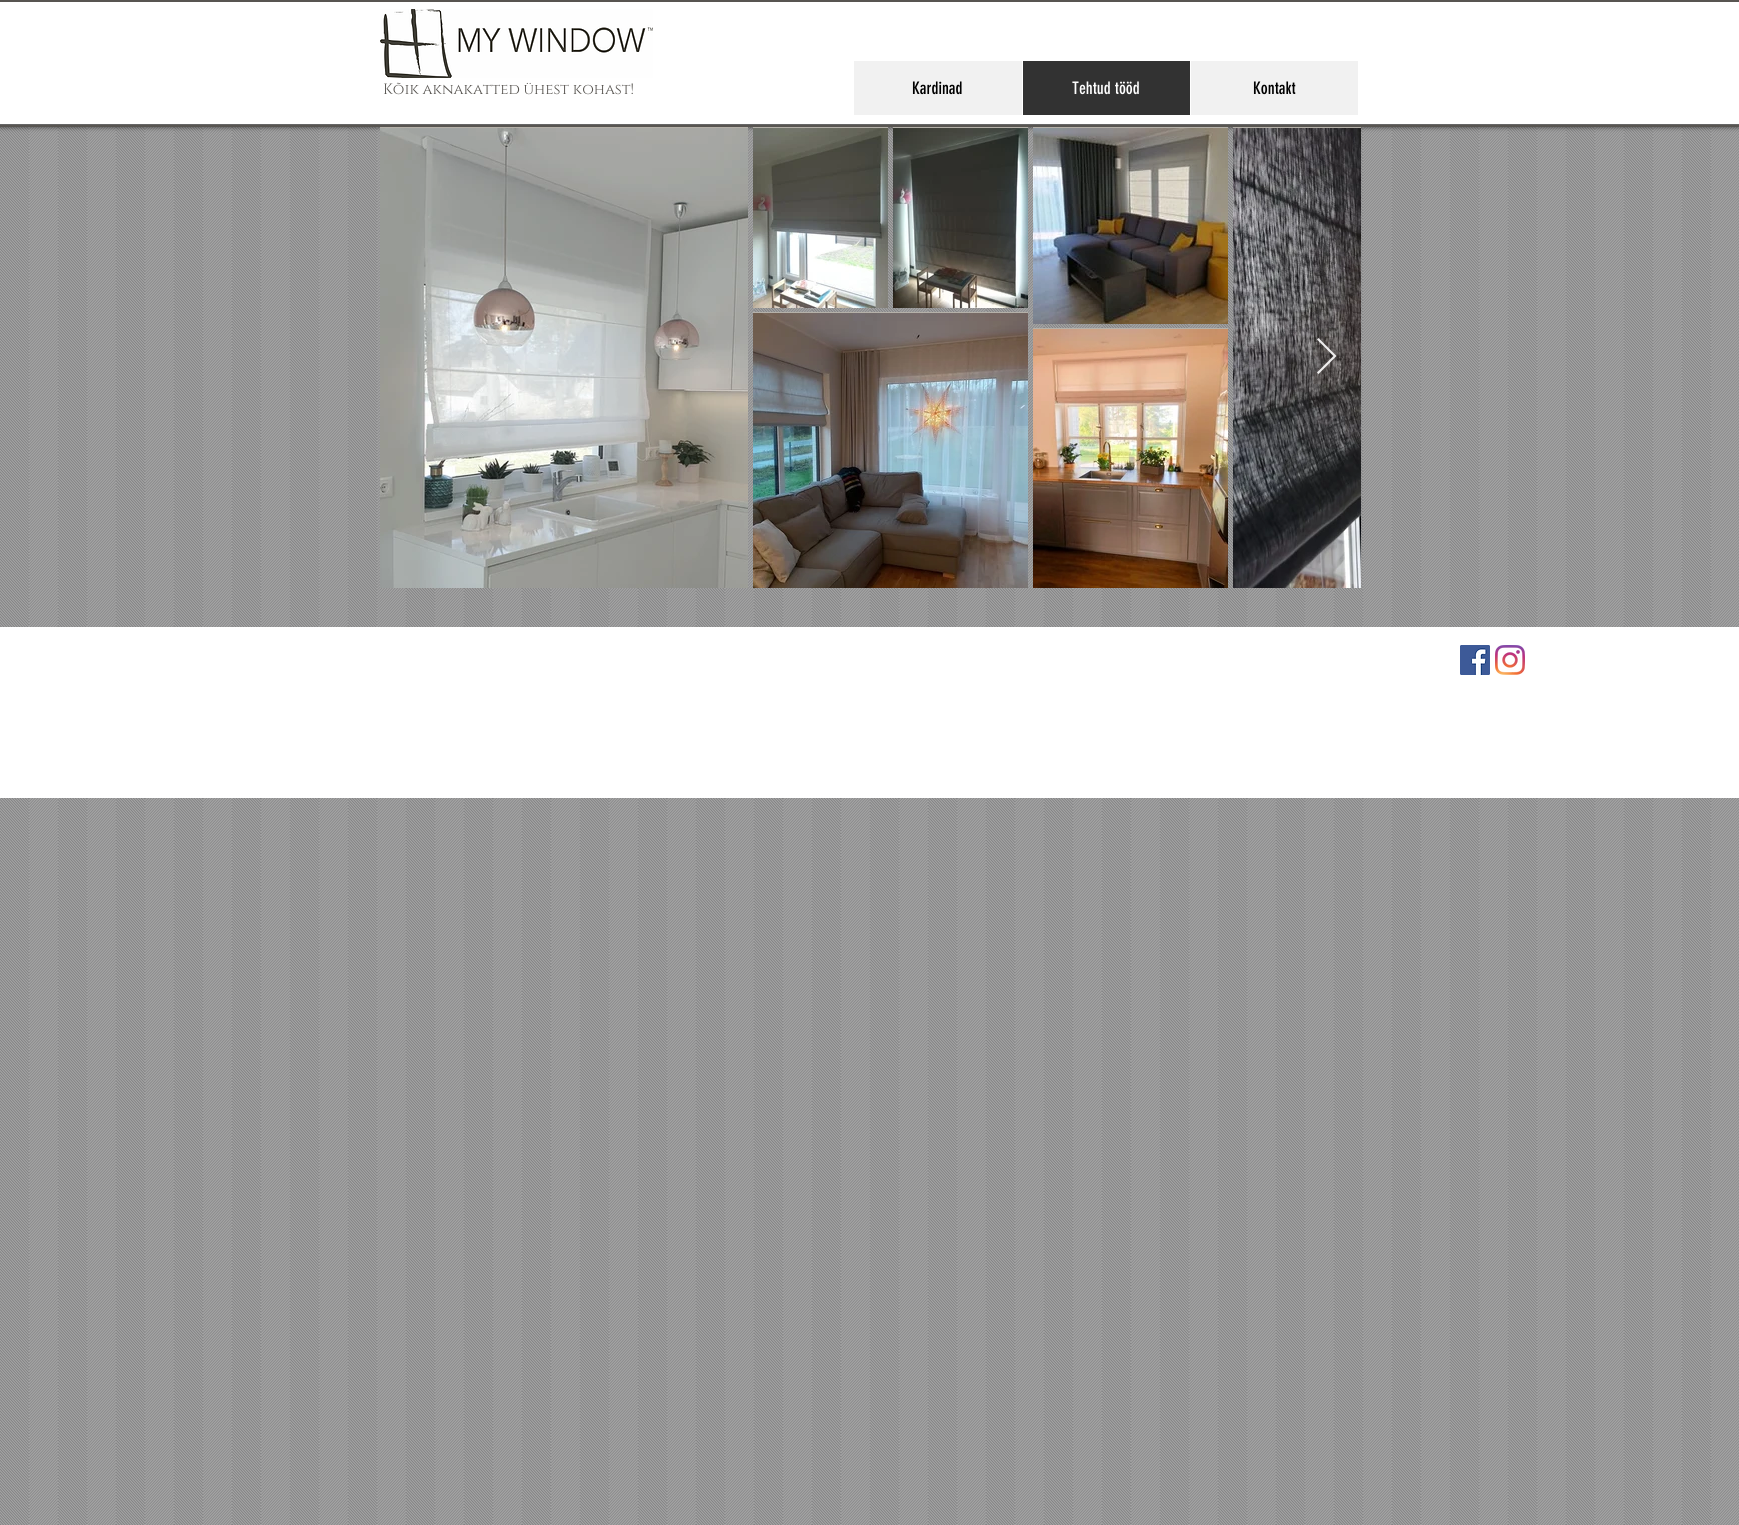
#include <cairo.h>
#include <math.h>
#include <stddef.h>


static void round_rect(cairo_t *cr, double x, double y, double w, double h, double r) {
    cairo_new_sub_path(cr);
    cairo_arc(cr, x + w - r, y + h - r, r, 0, M_PI / 2);
    cairo_arc(cr, x + r, y + h - r, r, M_PI / 2, M_PI);
    cairo_arc(cr, x + r, y + r, r, M_PI, 1.5 * M_PI);
    cairo_arc(cr, x + w - r, y + r, r, 1.5 * M_PI, 2 * M_PI);
    cairo_close_path(cr);
}

static void shadow(cairo_t *cr, double x, double y, double w, double h, double r, double blur, double alpha) {
    cairo_push_group_with_content(cr, CAIRO_CONTENT_ALPHA);
    cairo_set_operator(cr, CAIRO_OPERATOR_SOURCE);
    for (int i = 15; i >= -15 && fmin(w, h) + blur * i / 3 > 0; i -= 2) {
        double e = blur * i / 6;
        cairo_set_source_rgba(cr, 0, 0, 0, alpha * erfc((i - 1) / 8.5) / 2);
        round_rect(cr, x - e, y - e, w + 2 * e, h + 2 * e, fmax(0, fmin(r + e + blur * .6, fmin(w, h) / 2 + e)));
        cairo_fill(cr);
    }
    cairo_pattern_t *soft = cairo_pop_group(cr);
    cairo_mask(cr, soft);
    cairo_pattern_destroy(soft);
}

static void picture(cairo_t *cr, const char *path, double x, double y, double w, double h) {
    cairo_surface_t *image = cairo_image_surface_create_from_png(path);
    cairo_save(cr);
    cairo_set_source_surface(cr, image, x, y);
    cairo_rectangle(cr, x, y, w, h);
    cairo_fill(cr);
    cairo_restore(cr);
    cairo_surface_destroy(image);
}

int main(void) {
    cairo_surface_t *surface = cairo_image_surface_create(CAIRO_FORMAT_RGB24, 1739, 1525);
    cairo_t *cr = cairo_create(surface);
    cairo_font_options_t *options = cairo_font_options_create();
    cairo_font_options_set_hint_metrics(options, CAIRO_HINT_METRICS_OFF);
    cairo_font_options_set_hint_style(options, CAIRO_HINT_STYLE_NONE);
    cairo_set_font_options(cr, options);
    cairo_set_miter_limit(cr, 4);
    cairo_set_source_rgb(cr, 0.655, 0.655, 0.655);
    cairo_paint(cr);
    picture(cr, "img11.png", 0, 127, 1739, 1398);
    cairo_set_source_rgb(cr, 0, 0, 0);
    shadow(cr, 0, 0, 1739, 127, 0, 2.5, 0.6);
    cairo_set_source_rgb(cr, 1, 1, 1);
    cairo_rectangle(cr, 0, 2, 1739, 122);
    cairo_fill(cr);
    cairo_set_source_rgb(cr, 0.4, 0.4, 0.4);
    cairo_rectangle(cr, 0, 124, 1739, 1);
    cairo_fill(cr);
    cairo_set_source_rgb(cr, 0.345, 0.333, 0.318);
    cairo_rectangle(cr, 0, 0, 1739, 2);
    cairo_fill(cr);
    cairo_rectangle(cr, 0, 125, 1739, 2);
    cairo_fill(cr);
    picture(cr, "img1.png", 380, 9, 273, 69);
    cairo_select_font_face(cr, "Cinzel", CAIRO_FONT_SLANT_NORMAL, CAIRO_FONT_WEIGHT_NORMAL);
    cairo_set_font_size(cr, 15);
    cairo_move_to(cr, 383, 94);
    cairo_show_text(cr, "Kõik aknakatted ühest kohast!");
    cairo_set_source_rgb(cr, 0.945, 0.945, 0.945);
    cairo_rectangle(cr, 854, 61, 504, 54);
    cairo_fill(cr);
    cairo_select_font_face(cr, "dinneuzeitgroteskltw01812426", CAIRO_FONT_SLANT_NORMAL, CAIRO_FONT_WEIGHT_NORMAL);
    cairo_set_font_size(cr, 17);
    cairo_set_source_rgb(cr, 0, 0, 0);
    cairo_move_to(cr, 912, 94);
    cairo_show_text(cr, "Kardinad");
    cairo_set_source_rgb(cr, 0.196, 0.196, 0.196);
    cairo_rectangle(cr, 1023, 61, 167, 54);
    cairo_fill(cr);
    cairo_set_source_rgb(cr, 1, 1, 1);
    cairo_rectangle(cr, 1022, 61, 1, 54);
    cairo_fill(cr);
    cairo_move_to(cr, 1072, 94);
    cairo_show_text(cr, "Tehtud tööd");
    cairo_rectangle(cr, 1190, 61, 1, 54);
    cairo_fill(cr);
    cairo_set_source_rgb(cr, 0, 0, 0);
    cairo_move_to(cr, 1253, 94);
    cairo_show_text(cr, "Kontakt");
    cairo_set_source_rgb(cr, 0.71, 0.694, 0.663);
    cairo_rectangle(cr, 380, 127, 368, 1);
    cairo_fill(cr);
    picture(cr, "img2.png", 380, 128, 368, 460);
    cairo_rectangle(cr, 753, 127, 135, 1);
    cairo_fill(cr);
    picture(cr, "img3.png", 753, 128, 135, 180);
    cairo_rectangle(cr, 893, 127, 135, 1);
    cairo_fill(cr);
    picture(cr, "img4.png", 893, 128, 135, 180);
    cairo_rectangle(cr, 753, 312, 275, 1);
    cairo_fill(cr);
    picture(cr, "img5.png", 753, 313, 275, 275);
    cairo_rectangle(cr, 1033, 127, 195, 1);
    cairo_fill(cr);
    picture(cr, "img6.png", 1033, 128, 195, 196);
    cairo_rectangle(cr, 1033, 328, 195, 1);
    cairo_fill(cr);
    picture(cr, "img7.png", 1033, 329, 195, 259);
    cairo_rectangle(cr, 1233, 127, 128, 1);
    cairo_fill(cr);
    picture(cr, "img8.png", 1233, 128, 128, 460);
    cairo_set_source_rgba(cr, 1, 1, 1, 0.9);
    cairo_new_path(cr);
    cairo_move_to(cr, 1317, 339.5);
    cairo_line_to(cr, 1318.5, 338);
    cairo_line_to(cr, 1336.5, 356);
    cairo_line_to(cr, 1318.5, 374);
    cairo_line_to(cr, 1317, 372.5);
    cairo_line_to(cr, 1333.5, 356);
    cairo_close_path(cr);
    cairo_fill(cr);
    cairo_set_source_rgb(cr, 1, 1, 1);
    cairo_rectangle(cr, 0, 627, 1739, 171);
    cairo_fill(cr);
    picture(cr, "img9.png", 1460, 645, 30, 30);
    picture(cr, "img10.png", 1495, 645, 30, 30);
    cairo_surface_write_to_png(surface, "page.png");
    cairo_font_options_destroy(options);
    cairo_destroy(cr);
    cairo_surface_destroy(surface);
    return 0;
}
